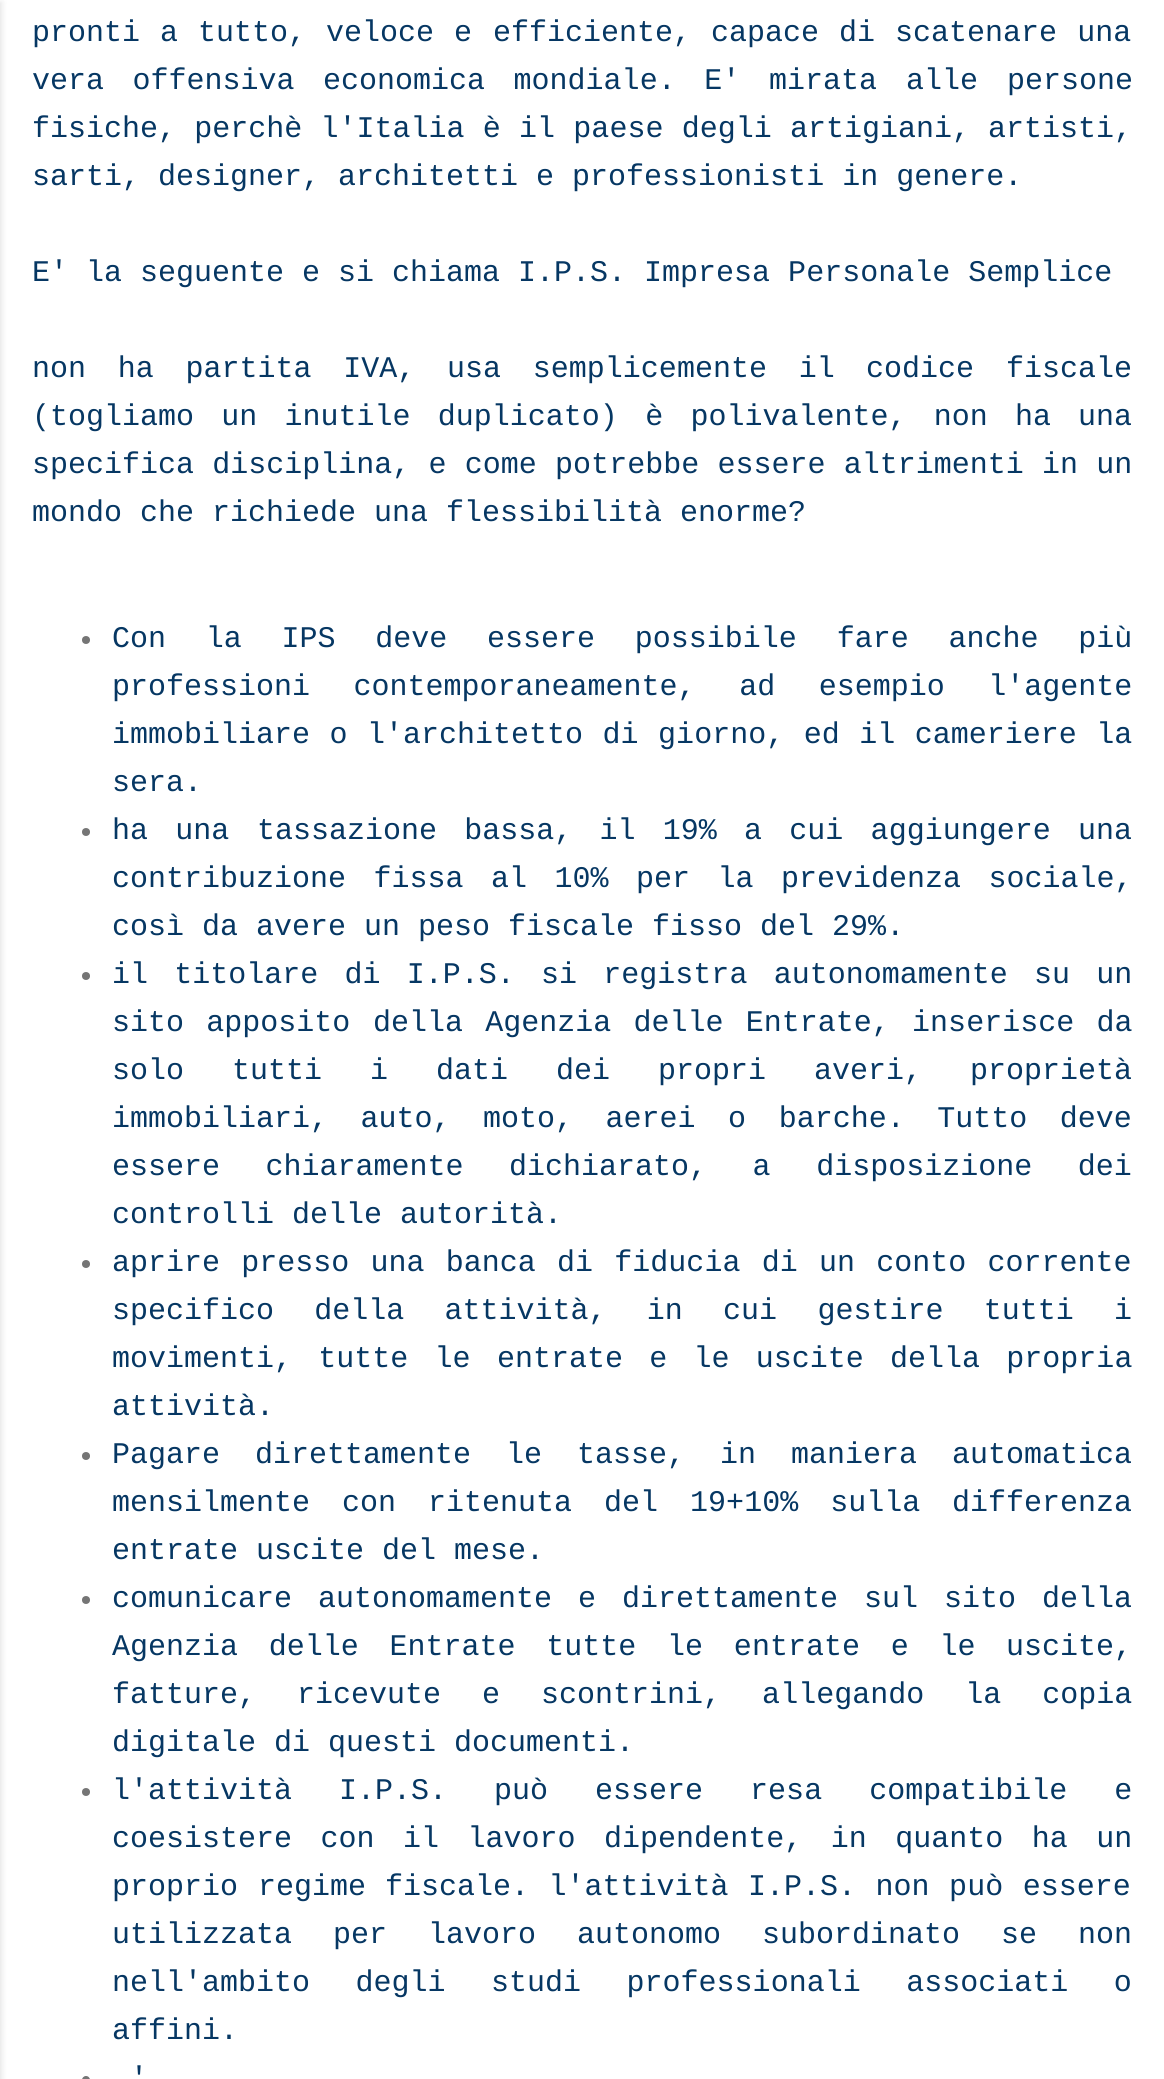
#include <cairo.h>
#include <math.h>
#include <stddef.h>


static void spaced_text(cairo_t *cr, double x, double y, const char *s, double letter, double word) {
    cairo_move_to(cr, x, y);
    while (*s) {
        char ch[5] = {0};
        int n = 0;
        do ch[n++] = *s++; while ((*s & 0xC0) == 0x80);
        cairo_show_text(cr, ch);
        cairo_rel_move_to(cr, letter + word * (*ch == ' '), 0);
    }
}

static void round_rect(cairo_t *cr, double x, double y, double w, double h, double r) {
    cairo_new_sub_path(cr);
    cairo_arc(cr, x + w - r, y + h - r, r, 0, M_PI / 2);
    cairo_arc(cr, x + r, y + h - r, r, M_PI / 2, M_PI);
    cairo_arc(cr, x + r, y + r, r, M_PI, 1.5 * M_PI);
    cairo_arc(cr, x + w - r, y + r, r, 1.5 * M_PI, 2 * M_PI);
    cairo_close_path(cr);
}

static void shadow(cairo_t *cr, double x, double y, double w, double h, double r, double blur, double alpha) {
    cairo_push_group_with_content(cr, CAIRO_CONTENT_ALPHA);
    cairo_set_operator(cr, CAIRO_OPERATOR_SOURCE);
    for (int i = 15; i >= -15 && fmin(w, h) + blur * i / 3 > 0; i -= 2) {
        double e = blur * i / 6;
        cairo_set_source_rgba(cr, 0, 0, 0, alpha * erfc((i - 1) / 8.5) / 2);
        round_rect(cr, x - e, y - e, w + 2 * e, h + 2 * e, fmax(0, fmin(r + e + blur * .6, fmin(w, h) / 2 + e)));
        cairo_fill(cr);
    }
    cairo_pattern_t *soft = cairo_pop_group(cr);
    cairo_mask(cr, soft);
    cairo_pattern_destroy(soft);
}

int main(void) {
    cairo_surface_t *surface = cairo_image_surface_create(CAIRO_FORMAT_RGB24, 1164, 2079);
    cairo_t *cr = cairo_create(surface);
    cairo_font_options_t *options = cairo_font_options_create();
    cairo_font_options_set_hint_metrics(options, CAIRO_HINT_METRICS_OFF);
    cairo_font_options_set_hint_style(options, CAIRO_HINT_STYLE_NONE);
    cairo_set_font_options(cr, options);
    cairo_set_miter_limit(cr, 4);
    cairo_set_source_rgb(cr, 1, 1, 1);
    cairo_paint(cr);
    cairo_set_source_rgb(cr, 0, 0, 0);
    shadow(cr, -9, 2, 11, 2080, 0, 3, 0.1);
    cairo_select_font_face(cr, "Liberation Mono", CAIRO_FONT_SLANT_NORMAL, CAIRO_FONT_WEIGHT_NORMAL);
    cairo_set_font_size(cr, 30);
    cairo_set_source_rgb(cr, 0.027, 0.216, 0.388);
    spaced_text(cr, 32, 41, "pronti a tutto, veloce e", 0, 2);
    spaced_text(cr, 493, 41, "efficiente, capace di scatenare una", 0, 2);
    spaced_text(cr, 32, 89, "vera offensiva economica mondiale. E'", 0, 10.5);
    spaced_text(cr, 769, 89, "mirata alle persone", 0, 11);
    spaced_text(cr, 32, 137, "fisiche, perchè l'Italia è il paese degli artigiani,", 0, 0.25);
    cairo_move_to(cr, 988, 137);
    cairo_show_text(cr, "artisti,");
    cairo_move_to(cr, 32, 185);
    cairo_show_text(cr, "sarti, designer, architetti e professionisti in genere.");
    cairo_move_to(cr, 32, 281);
    cairo_show_text(cr, "E' la seguente e si chiama I.P.S. Impresa Personale Semplice");
    spaced_text(cr, 32, 377, "non ha partita IVA, usa semplicemente il", 0, 13.75);
    spaced_text(cr, 866, 377, "codice fiscale", 0, 14);
    spaced_text(cr, 32, 425, "(togliamo un inutile duplicato) è polivalente, non ha", 0, 9.25);
    cairo_move_to(cr, 1078, 425);
    cairo_show_text(cr, "una");
    spaced_text(cr, 32, 473, "specifica disciplina, e come potrebbe essere altrimenti in un", 0, 0.25);
    cairo_move_to(cr, 32, 521);
    cairo_show_text(cr, "mondo che richiede una flessibilità enorme?");
    cairo_set_source_rgb(cr, 0.459, 0.459, 0.459);
    cairo_new_path(cr);
    cairo_arc(cr, 86, 640, 4, 0, 2 * M_PI);
    cairo_fill(cr);
    cairo_set_source_rgb(cr, 0.027, 0.216, 0.388);
    spaced_text(cr, 112, 647, "Con la IPS deve essere possibile fare anche più", 0, 21.75);
    spaced_text(cr, 112, 695, "professioni contemporaneamente, ad esempio l'agente", 0, 25.5);
    spaced_text(cr, 112, 743, "immobiliare o l'architetto di giorno, ed il cameriere la", 0, 1.5);
    cairo_move_to(cr, 112, 791);
    cairo_show_text(cr, "sera.");
    cairo_set_source_rgb(cr, 0.459, 0.459, 0.459);
    cairo_new_path(cr);
    cairo_arc(cr, 86, 832, 4, 0, 2 * M_PI);
    cairo_fill(cr);
    cairo_set_source_rgb(cr, 0.027, 0.216, 0.388);
    spaced_text(cr, 112, 839, "ha una", 0, 9.25);
    spaced_text(cr, 257, 839, "tassazione bassa, il 19% a cui aggiungere una", 0, 9.25);
    spaced_text(cr, 112, 887, "contribuzione fissa al 10%", 0, 9.5);
    spaced_text(cr, 636, 887, "per la previdenza sociale,", 0, 9.5);
    cairo_move_to(cr, 112, 935);
    cairo_show_text(cr, "così da avere un peso fiscale fisso del 29%.");
    cairo_set_source_rgb(cr, 0.459, 0.459, 0.459);
    cairo_new_path(cr);
    cairo_arc(cr, 86, 976, 4, 0, 2 * M_PI);
    cairo_fill(cr);
    cairo_set_source_rgb(cr, 0.027, 0.216, 0.388);
    spaced_text(cr, 112, 983, "il titolare di I.P.S. si registra autonomamente su un", 0, 8.25);
    spaced_text(cr, 112, 1031, "sito apposito", 0, 4.25);
    spaced_text(cr, 373, 1031, "della Agenzia delle Entrate, inserisce da", 0, 4.25);
    spaced_text(cr, 112, 1079, "solo tutti i dati dei propri", 0, 30);
    spaced_text(cr, 814, 1079, "averi, proprietà", 0, 30);
    spaced_text(cr, 112, 1127, "immobiliari, auto, moto, aerei o barche. Tutto deve", 0, 14.5);
    spaced_text(cr, 112, 1175, "essere chiaramente dichiarato, a disposizione dei", 0, 27.5);
    cairo_move_to(cr, 112, 1223);
    cairo_show_text(cr, "controlli delle autorità.");
    cairo_set_source_rgb(cr, 0.459, 0.459, 0.459);
    cairo_new_path(cr);
    cairo_arc(cr, 86, 1264, 4, 0, 2 * M_PI);
    cairo_fill(cr);
    cairo_set_source_rgb(cr, 0.027, 0.216, 0.388);
    spaced_text(cr, 112, 1271, "aprire presso una banca di fiducia di un conto corrente", 0, 3.25);
    spaced_text(cr, 112, 1319, "specifico della attività, in cui gestire tutti i", 0, 22.25);
    spaced_text(cr, 112, 1367, "movimenti, tutte le", 0, 8.25);
    spaced_text(cr, 497, 1367, "entrate e le uscite della propria", 0, 8.25);
    cairo_move_to(cr, 112, 1415);
    cairo_show_text(cr, "attività.");
    cairo_set_source_rgb(cr, 0.459, 0.459, 0.459);
    cairo_new_path(cr);
    cairo_arc(cr, 86, 1456, 4, 0, 2 * M_PI);
    cairo_fill(cr);
    cairo_set_source_rgb(cr, 0.027, 0.216, 0.388);
    spaced_text(cr, 112, 1463, "Pagare direttamente le", 0, 17);
    spaced_text(cr, 577, 1463, "tasse, in maniera automatica", 0, 17);
    spaced_text(cr, 112, 1511, "mensilmente con ritenuta del 19+10% sulla", 0, 14);
    cairo_move_to(cr, 952, 1511);
    cairo_show_text(cr, "differenza");
    cairo_move_to(cr, 112, 1559);
    cairo_show_text(cr, "entrate uscite del mese.");
    cairo_set_source_rgb(cr, 0.459, 0.459, 0.459);
    cairo_new_path(cr);
    cairo_arc(cr, 86, 1600, 4, 0, 2 * M_PI);
    cairo_fill(cr);
    cairo_set_source_rgb(cr, 0.027, 0.216, 0.388);
    spaced_text(cr, 112, 1607, "comunicare autonomamente e", 0, 8);
    spaced_text(cr, 622, 1607, "direttamente sul sito della", 0, 8);
    spaced_text(cr, 112, 1655, "Agenzia delle Entrate tutte le entrate e le", 0, 12.75);
    cairo_move_to(cr, 1006, 1655);
    cairo_show_text(cr, "uscite,");
    spaced_text(cr, 112, 1703, "fatture, ricevute e scontrini, allegando la copia", 0, 23);
    cairo_move_to(cr, 112, 1751);
    cairo_show_text(cr, "digitale di questi documenti.");
    cairo_set_source_rgb(cr, 0.459, 0.459, 0.459);
    cairo_new_path(cr);
    cairo_arc(cr, 86, 1792, 4, 0, 2 * M_PI);
    cairo_fill(cr);
    cairo_set_source_rgb(cr, 0.027, 0.216, 0.388);
    spaced_text(cr, 112, 1799, "l'attività I.P.S. può essere resa compatibile e", 0, 29);
    spaced_text(cr, 112, 1847, "coesistere con il lavoro dipendente, in quanto ha un", 0, 10.5);
    spaced_text(cr, 112, 1895, "proprio regime", 0, 2);
    spaced_text(cr, 385, 1895, "fiscale. l'attività I.P.S. non può essere", 0, 1.5);
    spaced_text(cr, 112, 1943, "utilizzata per lavoro autonomo", 0, 23);
    spaced_text(cr, 762, 1943, "subordinato se non", 0, 23);
    spaced_text(cr, 112, 1991, "nell'ambito degli studi professionali associati o", 0, 27.5);
    cairo_move_to(cr, 112, 2039);
    cairo_show_text(cr, "affini.");
    spaced_text(cr, 130, 2087, "'", 0, 5);
    cairo_set_source_rgb(cr, 0.459, 0.459, 0.459);
    round_rect(cr, 82, 2076, 8, 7, 4);
    cairo_fill(cr);
    cairo_surface_write_to_png(surface, "page.png");
    cairo_font_options_destroy(options);
    cairo_destroy(cr);
    cairo_surface_destroy(surface);
    return 0;
}
